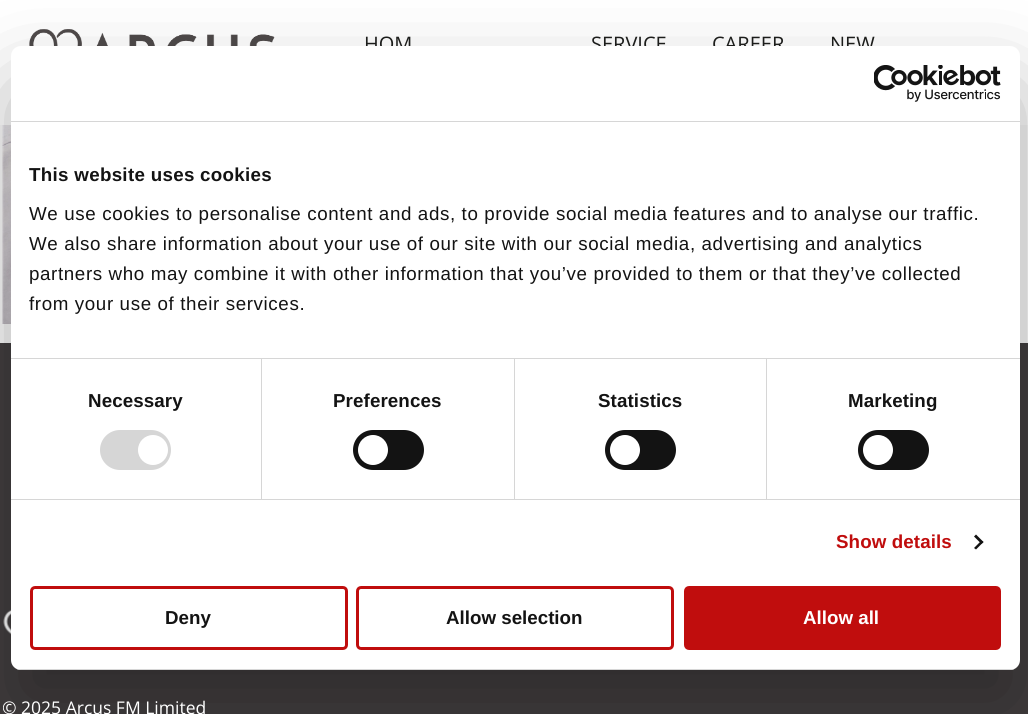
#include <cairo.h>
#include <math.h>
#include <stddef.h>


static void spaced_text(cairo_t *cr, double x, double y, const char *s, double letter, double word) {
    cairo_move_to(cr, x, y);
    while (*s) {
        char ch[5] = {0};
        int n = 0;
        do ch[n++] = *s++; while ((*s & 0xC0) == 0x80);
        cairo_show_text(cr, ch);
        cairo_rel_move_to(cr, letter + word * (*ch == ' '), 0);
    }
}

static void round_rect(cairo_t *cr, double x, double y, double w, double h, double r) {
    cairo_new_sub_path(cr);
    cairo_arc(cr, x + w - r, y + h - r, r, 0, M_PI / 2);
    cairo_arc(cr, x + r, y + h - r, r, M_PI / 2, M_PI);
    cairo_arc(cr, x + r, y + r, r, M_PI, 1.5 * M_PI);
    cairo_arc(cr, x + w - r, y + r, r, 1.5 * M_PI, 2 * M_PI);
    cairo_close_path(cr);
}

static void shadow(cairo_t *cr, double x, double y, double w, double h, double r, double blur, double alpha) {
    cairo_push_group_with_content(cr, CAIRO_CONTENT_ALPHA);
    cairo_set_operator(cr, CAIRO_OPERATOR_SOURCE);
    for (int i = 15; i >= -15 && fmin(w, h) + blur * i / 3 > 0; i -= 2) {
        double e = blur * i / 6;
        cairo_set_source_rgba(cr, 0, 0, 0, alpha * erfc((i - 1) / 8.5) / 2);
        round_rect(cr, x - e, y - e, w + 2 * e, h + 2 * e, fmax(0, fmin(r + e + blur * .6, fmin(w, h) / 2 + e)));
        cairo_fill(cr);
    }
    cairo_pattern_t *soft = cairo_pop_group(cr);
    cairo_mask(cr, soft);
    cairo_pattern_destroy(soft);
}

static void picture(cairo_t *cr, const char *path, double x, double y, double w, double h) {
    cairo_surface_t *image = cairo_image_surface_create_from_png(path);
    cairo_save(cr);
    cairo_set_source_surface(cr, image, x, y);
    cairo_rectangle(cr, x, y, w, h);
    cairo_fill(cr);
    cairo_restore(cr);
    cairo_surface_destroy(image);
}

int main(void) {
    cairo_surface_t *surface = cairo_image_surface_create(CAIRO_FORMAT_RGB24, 1028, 714);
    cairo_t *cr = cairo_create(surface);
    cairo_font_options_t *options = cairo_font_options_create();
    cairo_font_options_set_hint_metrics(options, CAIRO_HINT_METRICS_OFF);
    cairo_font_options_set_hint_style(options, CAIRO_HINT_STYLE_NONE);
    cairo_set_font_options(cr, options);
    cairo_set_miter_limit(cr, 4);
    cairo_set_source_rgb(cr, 0.969, 0.969, 0.969);
    cairo_paint(cr);
    cairo_set_source_rgb(cr, 1, 1, 1);
    cairo_rectangle(cr, 0, 0, 1028, 125);
    cairo_fill(cr);
    picture(cr, "img1.png", 29, 29, 246, 17);
    cairo_select_font_face(cr, "Open Sans", CAIRO_FONT_SLANT_NORMAL, CAIRO_FONT_WEIGHT_NORMAL);
    cairo_set_font_size(cr, 20);
    cairo_set_source_rgb(cr, 0.114, 0.118, 0.11);
    cairo_move_to(cr, 364, 51);
    cairo_show_text(cr, "HOM");
    cairo_move_to(cr, 591, 51);
    cairo_show_text(cr, "SERVICE");
    cairo_move_to(cr, 712, 51);
    cairo_show_text(cr, "CAREER");
    cairo_move_to(cr, 830, 51);
    cairo_show_text(cr, "NEW");
    picture(cr, "img2.png", 2, 125, 9, 199);
    cairo_set_source_rgb(cr, 0.259, 0.243, 0.247);
    cairo_rectangle(cr, 0, 343, 1028, 371);
    cairo_fill(cr);
    picture(cr, "img4.png", 3, 609, 8, 26);
    cairo_set_source_rgb(cr, 0, 0, 0);
    shadow(cr, 11, 86, 1009, 624, 10, 42.5, 0.3);
    cairo_set_source_rgb(cr, 1, 1, 1);
    round_rect(cr, 11, 46, 1009, 624, 10);
    cairo_fill(cr);
    cairo_set_source_rgb(cr, 0.839, 0.839, 0.839);
    cairo_rectangle(cr, 11, 121, 1009, 1);
    cairo_fill(cr);
    picture(cr, "img3.png", 874, 65, 127, 37);
    cairo_rectangle(cr, 11, 358, 1009, 1);
    cairo_fill(cr);
    cairo_select_font_face(cr, "Liberation Sans", CAIRO_FONT_SLANT_NORMAL, CAIRO_FONT_WEIGHT_BOLD);
    cairo_set_font_size(cr, 18.75);
    cairo_set_source_rgb(cr, 0.078, 0.078, 0.078);
    spaced_text(cr, 29, 181, "This website uses cookies", 0.3, 0);
    cairo_select_font_face(cr, "Liberation Sans", CAIRO_FONT_SLANT_NORMAL, CAIRO_FONT_WEIGHT_NORMAL);
    spaced_text(cr, 29, 220, "We use cookies to personalise content and ads, to provide social media features and to analyse our traffic.", 0.62, 0);
    spaced_text(cr, 29, 250, "We also share information about your use of our site with our social media, advertising and analytics", 0.62, 0);
    spaced_text(cr, 29, 280, "partners who may combine it with other information that you’ve provided to them or that they’ve collected", 0.62, 0);
    spaced_text(cr, 29, 310, "from your use of their services.", 0.62, 0);
    cairo_set_source_rgb(cr, 0.839, 0.839, 0.839);
    cairo_rectangle(cr, 11, 499, 1009, 1);
    cairo_fill(cr);
    cairo_rectangle(cr, 261, 359, 1, 140);
    cairo_fill(cr);
    cairo_select_font_face(cr, "Liberation Sans", CAIRO_FONT_SLANT_NORMAL, CAIRO_FONT_WEIGHT_BOLD);
    cairo_set_source_rgb(cr, 0.078, 0.078, 0.078);
    spaced_text(cr, 88, 407, "Necessary", 0.1, 0);
    cairo_set_source_rgb(cr, 0.839, 0.839, 0.839);
    round_rect(cr, 100, 430, 71, 40, 20);
    cairo_fill(cr);
    cairo_set_source_rgb(cr, 1, 1, 1);
    cairo_arc(cr, 153, 450, 15, 0, 2 * M_PI);
    cairo_fill(cr);
    cairo_set_source_rgb(cr, 0.839, 0.839, 0.839);
    cairo_rectangle(cr, 514, 359, 1, 140);
    cairo_fill(cr);
    cairo_set_source_rgb(cr, 0.078, 0.078, 0.078);
    spaced_text(cr, 333, 407, "Preferences", 0.1, 0);
    round_rect(cr, 353, 430, 71, 40, 20);
    cairo_fill(cr);
    cairo_set_source_rgb(cr, 1, 1, 1);
    cairo_arc(cr, 373, 450, 15, 0, 2 * M_PI);
    cairo_fill(cr);
    cairo_set_source_rgb(cr, 0.839, 0.839, 0.839);
    cairo_rectangle(cr, 766, 359, 1, 140);
    cairo_fill(cr);
    cairo_set_source_rgb(cr, 0.078, 0.078, 0.078);
    spaced_text(cr, 598, 407, "Statistics", 0.1, 0);
    round_rect(cr, 605, 430, 71, 40, 20);
    cairo_fill(cr);
    cairo_set_source_rgb(cr, 1, 1, 1);
    cairo_arc(cr, 625, 450, 15, 0, 2 * M_PI);
    cairo_fill(cr);
    cairo_set_source_rgb(cr, 0.078, 0.078, 0.078);
    spaced_text(cr, 848, 407, "Marketing", 0.1, 0);
    round_rect(cr, 858, 430, 71, 40, 20);
    cairo_fill(cr);
    cairo_set_source_rgb(cr, 1, 1, 1);
    cairo_arc(cr, 878, 450, 15, 0, 2 * M_PI);
    cairo_fill(cr);
    cairo_set_source_rgb(cr, 0.753, 0.051, 0.051);
    spaced_text(cr, 836, 548, "Show details", 0.1, 0);
    cairo_set_source_rgb(cr, 0.078, 0.078, 0.078);
    cairo_new_path(cr);
    cairo_move_to(cr, 976, 534.5);
    cairo_line_to(cr, 983.5, 542);
    cairo_line_to(cr, 981.5, 544);
    cairo_line_to(cr, 974, 536.5);
    cairo_close_path(cr);
    cairo_fill(cr);
    cairo_new_path(cr);
    cairo_move_to(cr, 981.5, 540.5);
    cairo_line_to(cr, 983.5, 542);
    cairo_line_to(cr, 976, 549.5);
    cairo_line_to(cr, 974, 548);
    cairo_close_path(cr);
    cairo_fill(cr);
    cairo_save(cr);
    round_rect(cr, 11, 46, 1009, 624, 10);
    cairo_clip(cr);
    cairo_set_source_rgb(cr, 0.839, 0.839, 0.839);
    cairo_rectangle(cr, 11, 669, 1009, 1);
    cairo_fill(cr);
    cairo_restore(cr);
    round_rect(cr, 31.5, 587.5, 315, 61, 3.5);
    cairo_set_source_rgb(cr, 0.753, 0.051, 0.051);
    cairo_set_line_width(cr, 3);
    cairo_stroke(cr);
    cairo_set_source_rgb(cr, 0.078, 0.078, 0.078);
    cairo_move_to(cr, 165, 624);
    cairo_show_text(cr, "Deny");
    round_rect(cr, 357.5, 587.5, 315, 61, 3.5);
    cairo_set_source_rgb(cr, 0.753, 0.051, 0.051);
    cairo_stroke(cr);
    cairo_set_source_rgb(cr, 0.078, 0.078, 0.078);
    cairo_move_to(cr, 446, 624);
    cairo_show_text(cr, "Allow selection");
    cairo_set_source_rgb(cr, 0.753, 0.051, 0.051);
    round_rect(cr, 685.5, 587.5, 314, 61, 3.5);
    cairo_fill_preserve(cr);
    cairo_stroke(cr);
    cairo_set_source_rgb(cr, 1, 1, 1);
    cairo_move_to(cr, 803, 624);
    cairo_show_text(cr, "Allow all");
    cairo_save(cr);
    cairo_rectangle(cr, 3, 545, 1025, 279);
    cairo_clip(cr);
    cairo_select_font_face(cr, "Open Sans", CAIRO_FONT_SLANT_NORMAL, CAIRO_FONT_WEIGHT_NORMAL);
    cairo_set_font_size(cr, 17.5);
    cairo_move_to(cr, 2, 714);
    cairo_show_text(cr, "© 2025 Arcus FM Limited");
    cairo_restore(cr);
    cairo_surface_write_to_png(surface, "page.png");
    cairo_font_options_destroy(options);
    cairo_destroy(cr);
    cairo_surface_destroy(surface);
    return 0;
}
